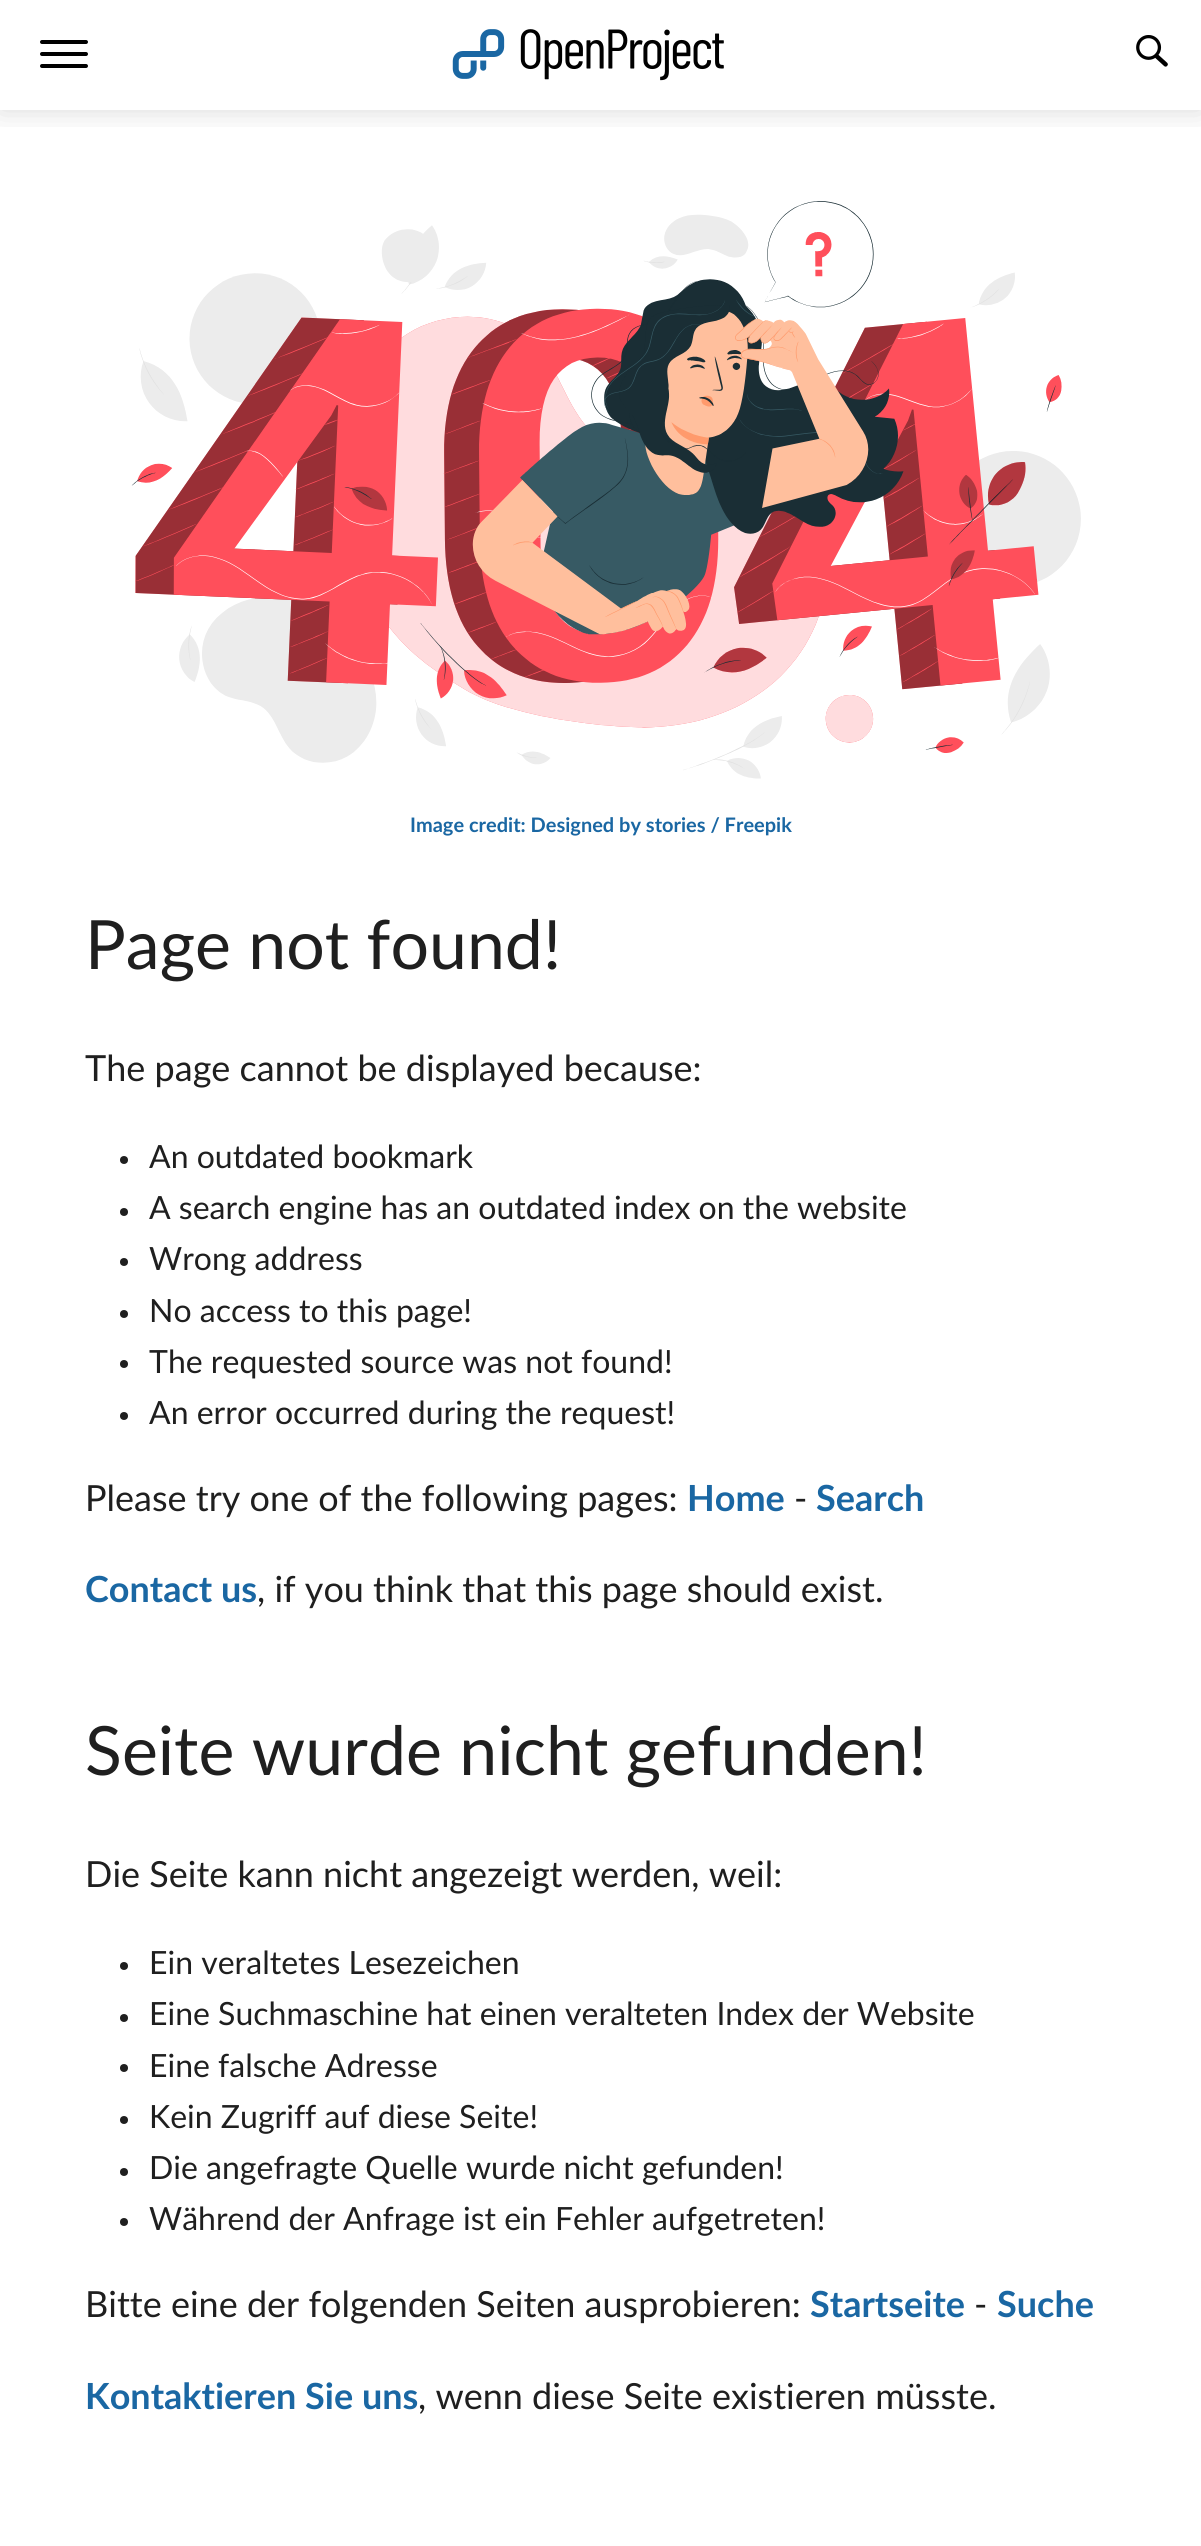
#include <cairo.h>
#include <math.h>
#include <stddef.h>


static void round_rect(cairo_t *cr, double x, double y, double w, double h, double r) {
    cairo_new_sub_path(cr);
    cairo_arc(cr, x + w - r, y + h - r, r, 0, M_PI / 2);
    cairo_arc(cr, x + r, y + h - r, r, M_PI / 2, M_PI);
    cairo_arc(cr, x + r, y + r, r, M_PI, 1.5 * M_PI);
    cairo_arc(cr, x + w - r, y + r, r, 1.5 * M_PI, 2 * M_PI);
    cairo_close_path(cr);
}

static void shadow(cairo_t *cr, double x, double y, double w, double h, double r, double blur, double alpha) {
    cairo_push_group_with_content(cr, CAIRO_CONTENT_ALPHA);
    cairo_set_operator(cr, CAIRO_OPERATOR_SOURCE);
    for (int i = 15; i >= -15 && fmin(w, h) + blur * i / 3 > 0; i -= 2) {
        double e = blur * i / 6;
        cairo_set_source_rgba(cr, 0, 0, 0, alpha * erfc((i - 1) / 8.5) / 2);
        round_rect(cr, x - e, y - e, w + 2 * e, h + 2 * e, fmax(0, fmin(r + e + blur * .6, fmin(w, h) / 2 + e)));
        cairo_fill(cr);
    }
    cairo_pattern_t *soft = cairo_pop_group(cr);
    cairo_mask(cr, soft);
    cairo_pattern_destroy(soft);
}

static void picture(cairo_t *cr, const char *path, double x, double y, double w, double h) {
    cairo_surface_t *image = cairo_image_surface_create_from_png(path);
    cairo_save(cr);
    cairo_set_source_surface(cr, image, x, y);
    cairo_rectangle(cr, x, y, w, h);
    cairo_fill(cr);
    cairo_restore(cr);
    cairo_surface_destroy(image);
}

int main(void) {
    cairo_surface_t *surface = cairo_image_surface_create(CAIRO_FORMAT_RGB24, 1201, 2546);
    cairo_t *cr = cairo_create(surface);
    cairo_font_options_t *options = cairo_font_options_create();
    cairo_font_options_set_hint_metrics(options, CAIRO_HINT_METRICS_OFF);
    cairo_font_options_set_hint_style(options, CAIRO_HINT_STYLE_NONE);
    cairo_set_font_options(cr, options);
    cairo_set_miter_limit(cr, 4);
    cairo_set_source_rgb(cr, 1, 1, 1);
    cairo_paint(cr);
    cairo_save(cr);
    cairo_rectangle(cr, 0, 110, 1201, 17);
    cairo_clip(cr);
    cairo_set_source_rgb(cr, 0, 0, 0);
    shadow(cr, 0, 0, 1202, 110, 0, 15, 0.15);
    cairo_restore(cr);
    cairo_set_source_rgb(cr, 0, 0, 0);
    round_rect(cr, 40, 40, 48, 4, 2);
    cairo_fill(cr);
    round_rect(cr, 40, 52, 48, 4, 2);
    cairo_fill(cr);
    round_rect(cr, 40, 64, 48, 4, 2);
    cairo_fill(cr);
    picture(cr, "img1.png", 452, 29, 272, 52);
    picture(cr, "img2.png", 1136, 35, 32, 32);
    picture(cr, "img3.png", 131, 201, 950, 578);
    cairo_select_font_face(cr, "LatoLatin", CAIRO_FONT_SLANT_NORMAL, CAIRO_FONT_WEIGHT_BOLD);
    cairo_set_font_size(cr, 20);
    cairo_set_source_rgb(cr, 0.102, 0.404, 0.639);
    cairo_move_to(cr, 410, 832);
    cairo_show_text(cr, "Image credit: Designed by stories / Freepik");
    cairo_select_font_face(cr, "LatoLatin", CAIRO_FONT_SLANT_NORMAL, CAIRO_FONT_WEIGHT_NORMAL);
    cairo_set_font_size(cr, 68);
    cairo_set_source_rgb(cr, 0.122, 0.122, 0.122);
    cairo_move_to(cr, 85, 969);
    cairo_show_text(cr, "Page not found!");
    cairo_set_font_size(cr, 36);
    cairo_move_to(cr, 85, 1081);
    cairo_show_text(cr, "The page cannot be displayed because:");
    cairo_new_path(cr);
    cairo_arc(cr, 124, 1160, 4, 0, 2 * M_PI);
    cairo_fill(cr);
    cairo_set_font_size(cr, 32);
    cairo_move_to(cr, 149, 1168);
    cairo_show_text(cr, "An outdated bookmark");
    cairo_new_path(cr);
    cairo_arc(cr, 124, 1212, 4, 0, 2 * M_PI);
    cairo_fill(cr);
    cairo_move_to(cr, 149, 1219);
    cairo_show_text(cr, "A search engine has an outdated index on the website");
    cairo_new_path(cr);
    cairo_arc(cr, 124, 1262, 4, 0, 2 * M_PI);
    cairo_fill(cr);
    cairo_move_to(cr, 149, 1270);
    cairo_show_text(cr, "Wrong address");
    cairo_new_path(cr);
    cairo_arc(cr, 124, 1314, 4, 0, 2 * M_PI);
    cairo_fill(cr);
    cairo_move_to(cr, 149, 1322);
    cairo_show_text(cr, "No access to this page!");
    cairo_new_path(cr);
    cairo_arc(cr, 124, 1364, 4, 0, 2 * M_PI);
    cairo_fill(cr);
    cairo_move_to(cr, 149, 1373);
    cairo_show_text(cr, "The requested source was not found!");
    cairo_new_path(cr);
    cairo_arc(cr, 124, 1416, 4, 0, 2 * M_PI);
    cairo_fill(cr);
    cairo_move_to(cr, 149, 1424);
    cairo_show_text(cr, "An error occurred during the request!");
    cairo_set_font_size(cr, 36);
    cairo_move_to(cr, 85, 1511);
    cairo_show_text(cr, "Please try one of the following pages:");
    cairo_select_font_face(cr, "LatoLatin", CAIRO_FONT_SLANT_NORMAL, CAIRO_FONT_WEIGHT_BOLD);
    cairo_set_source_rgb(cr, 0.102, 0.404, 0.639);
    cairo_move_to(cr, 687, 1511);
    cairo_show_text(cr, "Home");
    cairo_select_font_face(cr, "LatoLatin", CAIRO_FONT_SLANT_NORMAL, CAIRO_FONT_WEIGHT_NORMAL);
    cairo_set_source_rgb(cr, 0.122, 0.122, 0.122);
    cairo_move_to(cr, 794, 1511);
    cairo_show_text(cr, "-");
    cairo_select_font_face(cr, "LatoLatin", CAIRO_FONT_SLANT_NORMAL, CAIRO_FONT_WEIGHT_BOLD);
    cairo_set_source_rgb(cr, 0.102, 0.404, 0.639);
    cairo_move_to(cr, 816, 1511);
    cairo_show_text(cr, "Search");
    cairo_move_to(cr, 85, 1602);
    cairo_show_text(cr, "Contact us");
    cairo_select_font_face(cr, "LatoLatin", CAIRO_FONT_SLANT_NORMAL, CAIRO_FONT_WEIGHT_NORMAL);
    cairo_set_source_rgb(cr, 0.122, 0.122, 0.122);
    cairo_move_to(cr, 257, 1602);
    cairo_show_text(cr, ", if you think that this page should exist.");
    cairo_set_font_size(cr, 68);
    cairo_move_to(cr, 85, 1775);
    cairo_show_text(cr, "Seite wurde nicht gefunden!");
    cairo_set_font_size(cr, 36);
    cairo_move_to(cr, 85, 1887);
    cairo_show_text(cr, "Die Seite kann nicht angezeigt werden, weil:");
    cairo_new_path(cr);
    cairo_arc(cr, 124, 1966, 4, 0, 2 * M_PI);
    cairo_fill(cr);
    cairo_set_font_size(cr, 32);
    cairo_move_to(cr, 149, 1974);
    cairo_show_text(cr, "Ein veraltetes Lesezeichen");
    cairo_new_path(cr);
    cairo_arc(cr, 124, 2018, 4, 0, 2 * M_PI);
    cairo_fill(cr);
    cairo_move_to(cr, 149, 2025);
    cairo_show_text(cr, "Eine Suchmaschine hat einen veralteten Index der Website");
    cairo_new_path(cr);
    cairo_arc(cr, 124, 2068, 4, 0, 2 * M_PI);
    cairo_fill(cr);
    cairo_move_to(cr, 149, 2077);
    cairo_show_text(cr, "Eine falsche Adresse");
    cairo_new_path(cr);
    cairo_arc(cr, 124, 2120, 4, 0, 2 * M_PI);
    cairo_fill(cr);
    cairo_move_to(cr, 149, 2128);
    cairo_show_text(cr, "Kein Zugriff auf diese Seite!");
    cairo_new_path(cr);
    cairo_arc(cr, 124, 2172, 4, 0, 2 * M_PI);
    cairo_fill(cr);
    cairo_move_to(cr, 149, 2179);
    cairo_show_text(cr, "Die angefragte Quelle wurde nicht gefunden!");
    cairo_new_path(cr);
    cairo_arc(cr, 124, 2222, 4, 0, 2 * M_PI);
    cairo_fill(cr);
    cairo_move_to(cr, 149, 2230);
    cairo_show_text(cr, "Während der Anfrage ist ein Fehler aufgetreten!");
    cairo_set_font_size(cr, 36);
    cairo_move_to(cr, 85, 2317);
    cairo_show_text(cr, "Bitte eine der folgenden Seiten ausprobieren:");
    cairo_select_font_face(cr, "LatoLatin", CAIRO_FONT_SLANT_NORMAL, CAIRO_FONT_WEIGHT_BOLD);
    cairo_set_source_rgb(cr, 0.102, 0.404, 0.639);
    cairo_move_to(cr, 810, 2317);
    cairo_show_text(cr, "Startseite");
    cairo_select_font_face(cr, "LatoLatin", CAIRO_FONT_SLANT_NORMAL, CAIRO_FONT_WEIGHT_NORMAL);
    cairo_set_source_rgb(cr, 0.122, 0.122, 0.122);
    cairo_move_to(cr, 974, 2317);
    cairo_show_text(cr, "-");
    cairo_select_font_face(cr, "LatoLatin", CAIRO_FONT_SLANT_NORMAL, CAIRO_FONT_WEIGHT_BOLD);
    cairo_set_source_rgb(cr, 0.102, 0.404, 0.639);
    cairo_move_to(cr, 997, 2317);
    cairo_show_text(cr, "Suche");
    cairo_move_to(cr, 85, 2409);
    cairo_show_text(cr, "Kontaktieren Sie uns");
    cairo_select_font_face(cr, "LatoLatin", CAIRO_FONT_SLANT_NORMAL, CAIRO_FONT_WEIGHT_NORMAL);
    cairo_set_source_rgb(cr, 0.122, 0.122, 0.122);
    cairo_move_to(cr, 418, 2409);
    cairo_show_text(cr, ", wenn diese Seite existieren müsste.");
    cairo_surface_write_to_png(surface, "page.png");
    cairo_font_options_destroy(options);
    cairo_destroy(cr);
    cairo_surface_destroy(surface);
    return 0;
}
